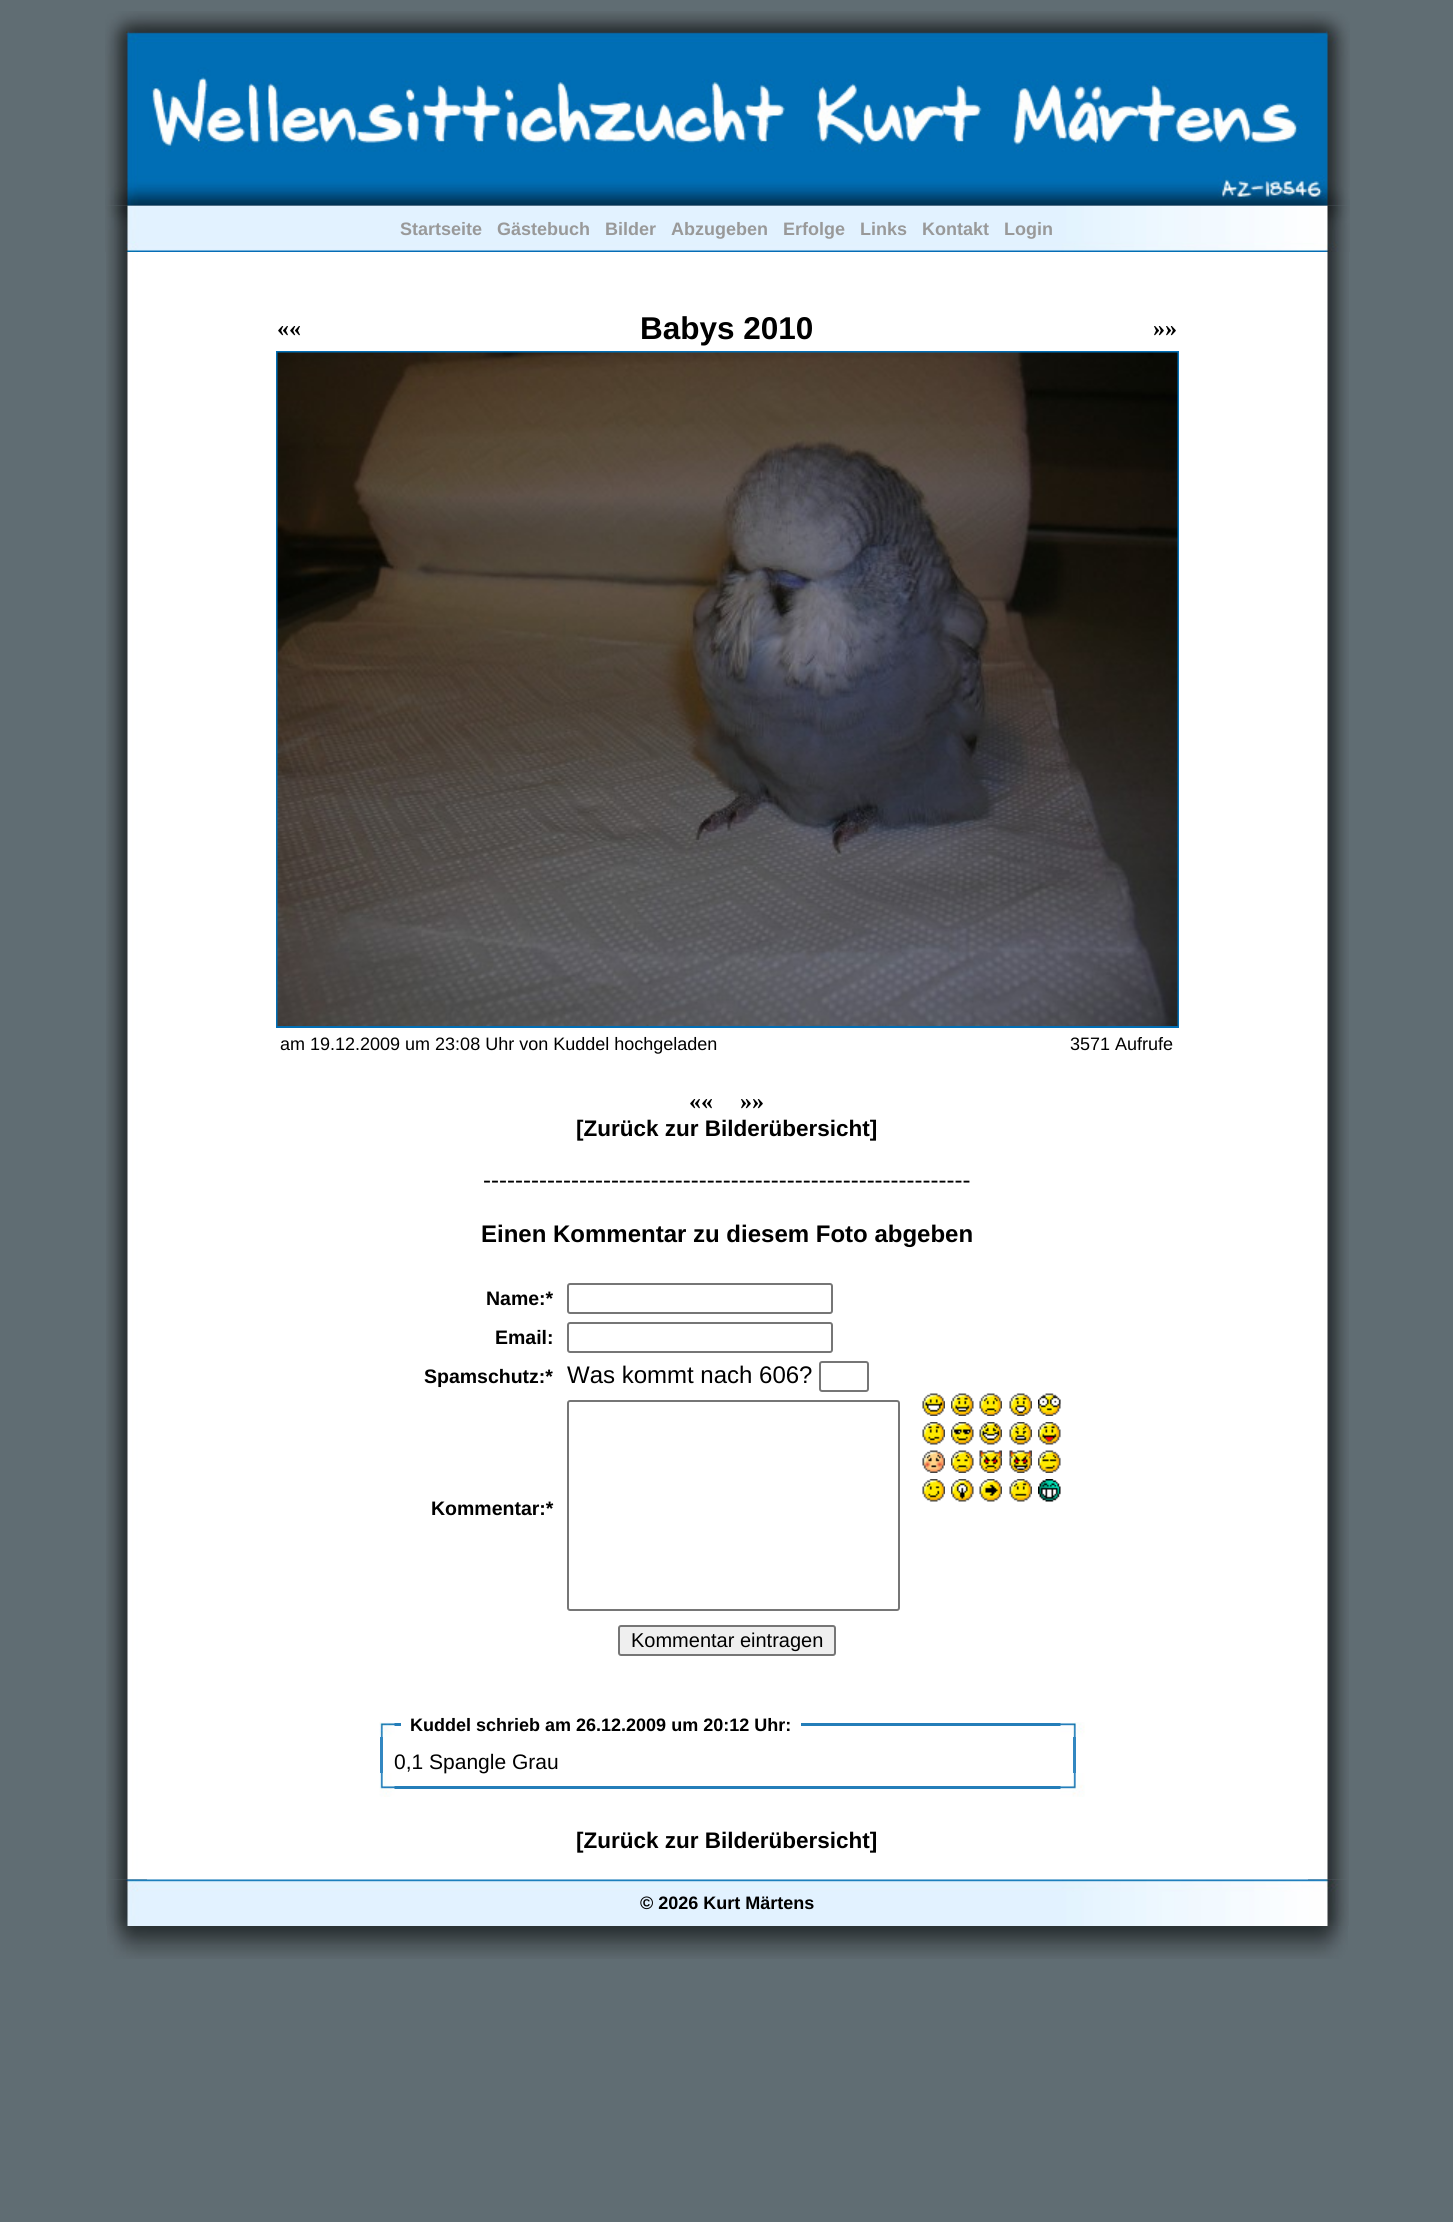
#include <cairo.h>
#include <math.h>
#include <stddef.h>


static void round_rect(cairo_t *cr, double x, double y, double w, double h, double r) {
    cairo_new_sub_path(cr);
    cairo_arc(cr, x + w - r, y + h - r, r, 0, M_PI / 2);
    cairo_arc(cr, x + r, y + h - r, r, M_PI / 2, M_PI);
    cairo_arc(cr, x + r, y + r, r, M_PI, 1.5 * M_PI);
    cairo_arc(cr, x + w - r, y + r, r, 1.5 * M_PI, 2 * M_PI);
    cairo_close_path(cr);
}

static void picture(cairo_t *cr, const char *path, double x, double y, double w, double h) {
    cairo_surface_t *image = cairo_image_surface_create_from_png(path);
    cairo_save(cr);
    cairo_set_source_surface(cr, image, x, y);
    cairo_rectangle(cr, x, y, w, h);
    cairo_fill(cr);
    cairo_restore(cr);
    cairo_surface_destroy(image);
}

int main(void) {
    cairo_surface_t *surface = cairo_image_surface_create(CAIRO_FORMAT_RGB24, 1453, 2222);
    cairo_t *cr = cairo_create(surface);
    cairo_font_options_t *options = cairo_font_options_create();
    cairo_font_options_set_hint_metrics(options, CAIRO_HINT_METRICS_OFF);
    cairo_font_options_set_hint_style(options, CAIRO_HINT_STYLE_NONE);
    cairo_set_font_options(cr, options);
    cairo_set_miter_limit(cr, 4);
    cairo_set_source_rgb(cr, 0.376, 0.427, 0.451);
    cairo_paint(cr);
    picture(cr, "img2.png", 105, 205, 1245, 47);
    picture(cr, "img1.png", 105, 11, 1245, 195);
    cairo_select_font_face(cr, "Liberation Sans", CAIRO_FONT_SLANT_NORMAL, CAIRO_FONT_WEIGHT_BOLD);
    cairo_set_font_size(cr, 18);
    cairo_set_source_rgb(cr, 0.6, 0.6, 0.6);
    cairo_move_to(cr, 400, 235);
    cairo_show_text(cr, "Startseite");
    cairo_move_to(cr, 497, 235);
    cairo_show_text(cr, "Gästebuch");
    cairo_move_to(cr, 605, 235);
    cairo_show_text(cr, "Bilder");
    cairo_move_to(cr, 671, 235);
    cairo_show_text(cr, "Abzugeben");
    cairo_move_to(cr, 783, 235);
    cairo_show_text(cr, "Erfolge");
    cairo_move_to(cr, 860, 235);
    cairo_show_text(cr, "Links");
    cairo_move_to(cr, 922, 235);
    cairo_show_text(cr, "Kontakt");
    cairo_move_to(cr, 1004, 235);
    cairo_show_text(cr, "Login");
    picture(cr, "img3.png", 106, 252, 41, 1628);
    cairo_set_source_rgb(cr, 1, 1, 1);
    cairo_rectangle(cr, 147, 252, 1161, 1628);
    cairo_fill(cr);
    cairo_select_font_face(cr, "Liberation Serif", CAIRO_FONT_SLANT_NORMAL, CAIRO_FONT_WEIGHT_BOLD);
    cairo_set_font_size(cr, 24);
    cairo_set_source_rgb(cr, 0, 0, 0);
    cairo_move_to(cr, 277, 336);
    cairo_show_text(cr, "««");
    cairo_select_font_face(cr, "Liberation Sans", CAIRO_FONT_SLANT_NORMAL, CAIRO_FONT_WEIGHT_BOLD);
    cairo_set_font_size(cr, 31.5);
    cairo_move_to(cr, 640, 339);
    cairo_show_text(cr, "Babys 2010");
    cairo_select_font_face(cr, "Liberation Serif", CAIRO_FONT_SLANT_NORMAL, CAIRO_FONT_WEIGHT_BOLD);
    cairo_set_font_size(cr, 24);
    cairo_move_to(cr, 1153, 336);
    cairo_show_text(cr, "»»");
    cairo_rectangle(cr, 277, 352, 901, 675);
    cairo_set_source_rgb(cr, 0, 0.431, 0.71);
    cairo_stroke(cr);
    picture(cr, "img4.png", 277, 352, 901, 674);
    cairo_select_font_face(cr, "Liberation Sans", CAIRO_FONT_SLANT_NORMAL, CAIRO_FONT_WEIGHT_NORMAL);
    cairo_set_font_size(cr, 18);
    cairo_set_source_rgb(cr, 0, 0, 0);
    cairo_move_to(cr, 280, 1050);
    cairo_show_text(cr, "am 19.12.2009 um 23:08 Uhr von Kuddel hochgeladen");
    cairo_move_to(cr, 1070, 1050);
    cairo_show_text(cr, "3571 Aufrufe");
    cairo_select_font_face(cr, "Liberation Serif", CAIRO_FONT_SLANT_NORMAL, CAIRO_FONT_WEIGHT_BOLD);
    cairo_set_font_size(cr, 24);
    cairo_move_to(cr, 689, 1109);
    cairo_show_text(cr, "««");
    cairo_move_to(cr, 740, 1109);
    cairo_show_text(cr, "»»");
    cairo_select_font_face(cr, "Liberation Sans", CAIRO_FONT_SLANT_NORMAL, CAIRO_FONT_WEIGHT_BOLD);
    cairo_set_font_size(cr, 22.5);
    cairo_move_to(cr, 576, 1136);
    cairo_show_text(cr, "[Zurück zur Bilderübersicht]");
    cairo_select_font_face(cr, "Liberation Sans", CAIRO_FONT_SLANT_NORMAL, CAIRO_FONT_WEIGHT_NORMAL);
    cairo_set_font_size(cr, 24);
    cairo_move_to(cr, 483, 1188);
    cairo_show_text(cr, "-------------------------------------------------------------");
    cairo_select_font_face(cr, "Liberation Sans", CAIRO_FONT_SLANT_NORMAL, CAIRO_FONT_WEIGHT_BOLD);
    cairo_move_to(cr, 481, 1242);
    cairo_show_text(cr, "Einen Kommentar zu diesem Foto abgeben");
    cairo_set_font_size(cr, 19.5);
    cairo_move_to(cr, 486, 1305);
    cairo_show_text(cr, "Name:*");
    round_rect(cr, 568, 1284, 264, 29, 2);
    cairo_set_source_rgb(cr, 0.463, 0.463, 0.463);
    cairo_stroke(cr);
    cairo_set_source_rgb(cr, 0, 0, 0);
    cairo_move_to(cr, 495, 1344);
    cairo_show_text(cr, "Email:");
    round_rect(cr, 568, 1323, 264, 29, 2);
    cairo_set_source_rgb(cr, 0.463, 0.463, 0.463);
    cairo_stroke(cr);
    cairo_set_source_rgb(cr, 0, 0, 0);
    cairo_move_to(cr, 424, 1383);
    cairo_show_text(cr, "Spamschutz:*");
    cairo_select_font_face(cr, "Liberation Sans", CAIRO_FONT_SLANT_NORMAL, CAIRO_FONT_WEIGHT_NORMAL);
    cairo_set_font_size(cr, 24);
    cairo_move_to(cr, 567, 1383);
    cairo_show_text(cr, "Was kommt nach 606?");
    round_rect(cr, 820, 1362, 48, 29, 2);
    cairo_set_source_rgb(cr, 0.463, 0.463, 0.463);
    cairo_stroke(cr);
    cairo_select_font_face(cr, "Liberation Sans", CAIRO_FONT_SLANT_NORMAL, CAIRO_FONT_WEIGHT_BOLD);
    cairo_set_font_size(cr, 19.5);
    cairo_set_source_rgb(cr, 0, 0, 0);
    cairo_move_to(cr, 431, 1515);
    cairo_show_text(cr, "Kommentar:*");
    round_rect(cr, 568, 1401, 331, 209, 2);
    cairo_set_source_rgb(cr, 0.463, 0.463, 0.463);
    cairo_stroke(cr);
    picture(cr, "img5.png", 922, 1393, 23, 23);
    picture(cr, "img6.png", 951, 1393, 23, 23);
    picture(cr, "img7.png", 979, 1393, 23, 23);
    picture(cr, "img8.png", 1009, 1393, 23, 23);
    picture(cr, "img9.png", 1038, 1393, 23, 23);
    picture(cr, "img10.png", 922, 1422, 23, 23);
    picture(cr, "img11.png", 951, 1422, 23, 23);
    picture(cr, "img12.png", 979, 1422, 23, 23);
    picture(cr, "img13.png", 1009, 1422, 23, 23);
    picture(cr, "img14.png", 1038, 1422, 23, 23);
    picture(cr, "img15.png", 922, 1450, 23, 23);
    picture(cr, "img16.png", 951, 1450, 23, 23);
    picture(cr, "img17.png", 979, 1450, 23, 23);
    picture(cr, "img18.png", 1009, 1450, 23, 23);
    picture(cr, "img19.png", 1038, 1450, 23, 23);
    picture(cr, "img20.png", 922, 1479, 23, 23);
    picture(cr, "img21.png", 951, 1479, 23, 23);
    picture(cr, "img22.png", 979, 1479, 23, 23);
    picture(cr, "img23.png", 1009, 1479, 23, 23);
    picture(cr, "img24.png", 1038, 1479, 23, 23);
    cairo_set_source_rgb(cr, 0.937, 0.937, 0.937);
    round_rect(cr, 619, 1626, 216, 29, 2);
    cairo_fill_preserve(cr);
    cairo_set_source_rgb(cr, 0.463, 0.463, 0.463);
    cairo_stroke(cr);
    cairo_select_font_face(cr, "Liberation Sans", CAIRO_FONT_SLANT_NORMAL, CAIRO_FONT_WEIGHT_NORMAL);
    cairo_set_font_size(cr, 20);
    cairo_set_source_rgb(cr, 0, 0, 0);
    cairo_move_to(cr, 631, 1647);
    cairo_show_text(cr, "Kommentar eintragen");
    cairo_set_source_rgb(cr, 0.141, 0.494, 0.725);
    cairo_rectangle(cr, 394, 1723, 667, 3);
    cairo_fill(cr);
    picture(cr, "img25.png", 379, 1722, 16, 15);
    cairo_set_source_rgb(cr, 1, 1, 1);
    cairo_rectangle(cr, 401, 1723, 400, 3);
    cairo_fill(cr);
    cairo_select_font_face(cr, "Liberation Sans", CAIRO_FONT_SLANT_NORMAL, CAIRO_FONT_WEIGHT_BOLD);
    cairo_set_font_size(cr, 18);
    cairo_set_source_rgb(cr, 0, 0, 0);
    cairo_move_to(cr, 410, 1731);
    cairo_show_text(cr, "Kuddel schrieb am 26.12.2009 um 20:12 Uhr:");
    picture(cr, "img26.png", 1060, 1722, 25, 15);
    cairo_set_source_rgb(cr, 0.196, 0.529, 0.757);
    cairo_rectangle(cr, 380, 1737, 3, 36);
    cairo_fill(cr);
    cairo_rectangle(cr, 1073, 1737, 3, 36);
    cairo_fill(cr);
    cairo_select_font_face(cr, "Liberation Sans", CAIRO_FONT_SLANT_NORMAL, CAIRO_FONT_WEIGHT_NORMAL);
    cairo_set_font_size(cr, 21);
    cairo_set_source_rgb(cr, 0, 0, 0);
    cairo_move_to(cr, 394, 1769);
    cairo_show_text(cr, "0,1 Spangle Grau");
    cairo_set_source_rgb(cr, 0.141, 0.494, 0.725);
    cairo_rectangle(cr, 394, 1786, 667, 3);
    cairo_fill(cr);
    picture(cr, "img27.png", 379, 1773, 16, 24);
    picture(cr, "img28.png", 1060, 1773, 25, 24);
    cairo_select_font_face(cr, "Liberation Sans", CAIRO_FONT_SLANT_NORMAL, CAIRO_FONT_WEIGHT_BOLD);
    cairo_set_font_size(cr, 22.5);
    cairo_set_source_rgb(cr, 0, 0, 0);
    cairo_move_to(cr, 576, 1848);
    cairo_show_text(cr, "[Zurück zur Bilderübersicht]");
    picture(cr, "img29.png", 1308, 252, 41, 1628);
    picture(cr, "img30.png", 106, 1879, 1243, 47);
    cairo_set_font_size(cr, 18);
    cairo_move_to(cr, 640, 1909);
    cairo_show_text(cr, "© 2026 Kurt Märtens");
    picture(cr, "img31.png", 107, 1926, 1241, 33);
    cairo_surface_write_to_png(surface, "page.png");
    cairo_font_options_destroy(options);
    cairo_destroy(cr);
    cairo_surface_destroy(surface);
    return 0;
}
